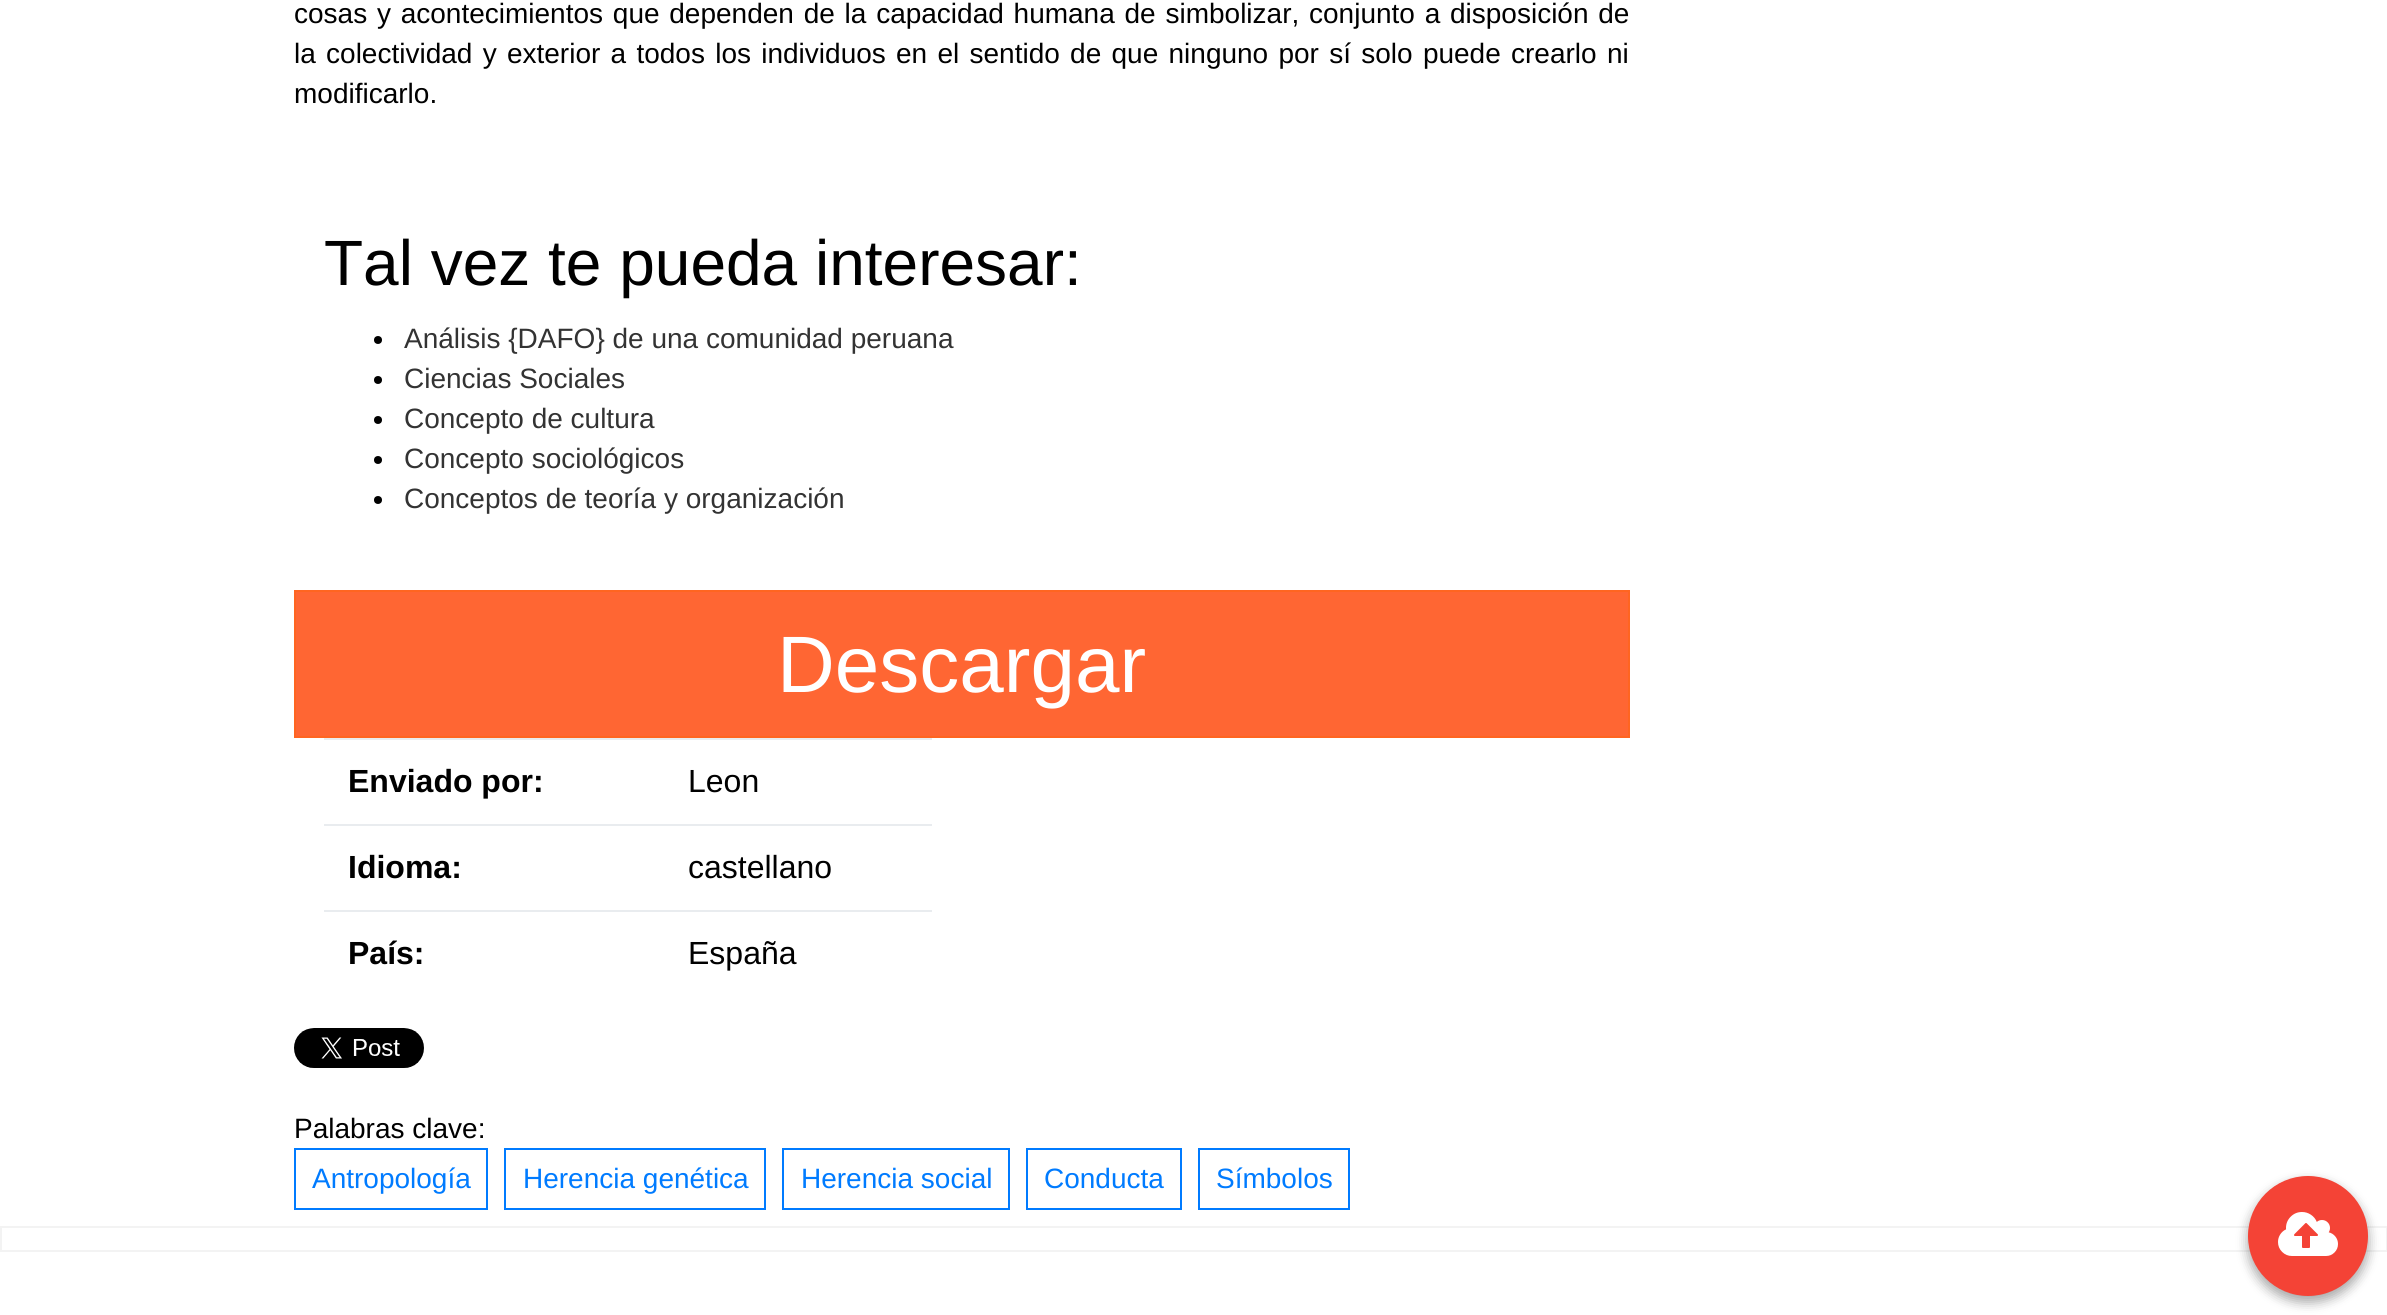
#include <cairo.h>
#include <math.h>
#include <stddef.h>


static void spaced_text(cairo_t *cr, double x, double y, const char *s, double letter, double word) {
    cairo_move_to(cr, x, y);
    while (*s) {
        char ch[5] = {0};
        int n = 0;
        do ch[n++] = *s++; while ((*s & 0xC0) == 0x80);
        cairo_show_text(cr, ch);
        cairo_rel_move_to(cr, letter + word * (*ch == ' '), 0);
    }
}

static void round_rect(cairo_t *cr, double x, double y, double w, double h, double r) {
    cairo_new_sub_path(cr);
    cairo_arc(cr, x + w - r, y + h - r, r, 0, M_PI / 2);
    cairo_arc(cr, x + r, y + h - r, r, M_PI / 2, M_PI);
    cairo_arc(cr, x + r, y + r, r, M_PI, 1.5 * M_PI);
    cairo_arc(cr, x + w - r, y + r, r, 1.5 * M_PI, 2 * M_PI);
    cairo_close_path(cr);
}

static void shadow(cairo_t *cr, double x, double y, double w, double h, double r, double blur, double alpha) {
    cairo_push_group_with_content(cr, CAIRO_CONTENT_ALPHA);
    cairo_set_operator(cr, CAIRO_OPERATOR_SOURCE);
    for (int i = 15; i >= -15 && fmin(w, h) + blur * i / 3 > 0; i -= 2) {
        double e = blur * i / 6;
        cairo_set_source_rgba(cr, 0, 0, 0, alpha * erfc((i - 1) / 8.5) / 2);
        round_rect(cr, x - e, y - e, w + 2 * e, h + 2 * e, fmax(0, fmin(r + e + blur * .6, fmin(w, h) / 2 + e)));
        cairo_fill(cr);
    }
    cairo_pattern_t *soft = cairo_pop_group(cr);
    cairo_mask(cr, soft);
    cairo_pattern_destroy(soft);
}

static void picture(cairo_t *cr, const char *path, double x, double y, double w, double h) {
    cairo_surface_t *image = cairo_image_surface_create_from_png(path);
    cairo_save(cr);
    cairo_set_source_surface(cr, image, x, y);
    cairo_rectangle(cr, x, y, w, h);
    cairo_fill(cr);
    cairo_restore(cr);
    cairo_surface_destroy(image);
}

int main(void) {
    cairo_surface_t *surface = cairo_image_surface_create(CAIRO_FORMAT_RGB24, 2387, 1315);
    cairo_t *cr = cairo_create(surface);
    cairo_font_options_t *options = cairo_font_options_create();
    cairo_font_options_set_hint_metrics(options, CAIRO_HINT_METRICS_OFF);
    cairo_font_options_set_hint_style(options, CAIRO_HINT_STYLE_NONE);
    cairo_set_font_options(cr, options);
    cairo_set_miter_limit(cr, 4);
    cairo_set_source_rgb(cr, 1, 1, 1);
    cairo_paint(cr);
    cairo_select_font_face(cr, "Liberation Sans", CAIRO_FONT_SLANT_NORMAL, CAIRO_FONT_WEIGHT_NORMAL);
    cairo_set_font_size(cr, 28);
    cairo_set_source_rgb(cr, 0, 0, 0);
    spaced_text(cr, 294, 23, "cosas y acontecimientos que dependen de la capacidad humana de simbolizar, conjunto a disposición de", 0, 2);
    spaced_text(cr, 294, 63, "la colectividad y exterior a todos los individuos en el sentido de que ninguno por sí solo puede crearlo ni", 0, 2.5);
    cairo_move_to(cr, 294, 103);
    cairo_show_text(cr, "modificarlo.");
    cairo_set_font_size(cr, 64);
    cairo_move_to(cr, 324, 285);
    cairo_show_text(cr, "Tal vez te pueda interesar:");
    cairo_new_path(cr);
    cairo_arc(cr, 378, 340, 4, 0, 2 * M_PI);
    cairo_fill(cr);
    cairo_set_font_size(cr, 28);
    cairo_set_source_rgb(cr, 0.2, 0.2, 0.2);
    cairo_move_to(cr, 404, 348);
    cairo_show_text(cr, "Análisis {DAFO} de una comunidad peruana");
    cairo_set_source_rgb(cr, 0, 0, 0);
    cairo_new_path(cr);
    cairo_arc(cr, 378, 380, 4, 0, 2 * M_PI);
    cairo_fill(cr);
    cairo_set_source_rgb(cr, 0.2, 0.2, 0.2);
    cairo_move_to(cr, 404, 388);
    cairo_show_text(cr, "Ciencias Sociales");
    cairo_set_source_rgb(cr, 0, 0, 0);
    cairo_new_path(cr);
    cairo_arc(cr, 378, 420, 4, 0, 2 * M_PI);
    cairo_fill(cr);
    cairo_set_source_rgb(cr, 0.2, 0.2, 0.2);
    cairo_move_to(cr, 404, 428);
    cairo_show_text(cr, "Concepto de cultura");
    cairo_set_source_rgb(cr, 0, 0, 0);
    cairo_new_path(cr);
    cairo_arc(cr, 378, 460, 4, 0, 2 * M_PI);
    cairo_fill(cr);
    cairo_set_source_rgb(cr, 0.2, 0.2, 0.2);
    cairo_move_to(cr, 404, 468);
    cairo_show_text(cr, "Concepto sociológicos");
    cairo_set_source_rgb(cr, 0, 0, 0);
    cairo_new_path(cr);
    cairo_arc(cr, 378, 500, 4, 0, 2 * M_PI);
    cairo_fill(cr);
    cairo_set_source_rgb(cr, 0.2, 0.2, 0.2);
    cairo_move_to(cr, 404, 508);
    cairo_show_text(cr, "Conceptos de teoría y organización");
    cairo_set_source_rgb(cr, 1, 0.4, 0.2);
    cairo_rectangle(cr, 295, 591, 1334, 146);
    cairo_fill_preserve(cr);
    cairo_set_source_rgb(cr, 1, 0.396, 0.129);
    cairo_stroke(cr);
    cairo_set_font_size(cr, 80);
    cairo_set_source_rgb(cr, 1, 1, 1);
    cairo_move_to(cr, 777, 692);
    cairo_show_text(cr, "Descargar");
    cairo_select_font_face(cr, "Liberation Sans", CAIRO_FONT_SLANT_NORMAL, CAIRO_FONT_WEIGHT_BOLD);
    cairo_set_font_size(cr, 32);
    cairo_set_source_rgb(cr, 0, 0, 0);
    cairo_move_to(cr, 348, 792);
    cairo_show_text(cr, "Enviado por:");
    cairo_set_source_rgb(cr, 0.914, 0.925, 0.937);
    cairo_rectangle(cr, 324, 738, 608, 2);
    cairo_fill(cr);
    cairo_select_font_face(cr, "Liberation Sans", CAIRO_FONT_SLANT_NORMAL, CAIRO_FONT_WEIGHT_NORMAL);
    cairo_set_source_rgb(cr, 0, 0, 0);
    cairo_move_to(cr, 688, 792);
    cairo_show_text(cr, "Leon");
    cairo_select_font_face(cr, "Liberation Sans", CAIRO_FONT_SLANT_NORMAL, CAIRO_FONT_WEIGHT_BOLD);
    cairo_move_to(cr, 348, 878);
    cairo_show_text(cr, "Idioma:");
    cairo_set_source_rgb(cr, 0.914, 0.925, 0.937);
    cairo_rectangle(cr, 324, 824, 608, 2);
    cairo_fill(cr);
    cairo_select_font_face(cr, "Liberation Sans", CAIRO_FONT_SLANT_NORMAL, CAIRO_FONT_WEIGHT_NORMAL);
    cairo_set_source_rgb(cr, 0, 0, 0);
    cairo_move_to(cr, 688, 878);
    cairo_show_text(cr, "castellano");
    cairo_select_font_face(cr, "Liberation Sans", CAIRO_FONT_SLANT_NORMAL, CAIRO_FONT_WEIGHT_BOLD);
    cairo_move_to(cr, 348, 964);
    cairo_show_text(cr, "País:");
    cairo_set_source_rgb(cr, 0.914, 0.925, 0.937);
    cairo_rectangle(cr, 324, 910, 608, 2);
    cairo_fill(cr);
    cairo_select_font_face(cr, "Liberation Sans", CAIRO_FONT_SLANT_NORMAL, CAIRO_FONT_WEIGHT_NORMAL);
    cairo_set_source_rgb(cr, 0, 0, 0);
    cairo_move_to(cr, 688, 964);
    cairo_show_text(cr, "España");
    picture(cr, "img1.png", 294, 1028, 130, 40);
    cairo_set_font_size(cr, 28);
    cairo_move_to(cr, 294, 1138);
    cairo_show_text(cr, "Palabras clave:");
    cairo_rectangle(cr, 295, 1149, 192, 60);
    cairo_set_source_rgb(cr, 0, 0.482, 1);
    cairo_stroke(cr);
    cairo_move_to(cr, 312, 1188);
    cairo_show_text(cr, "Antropología");
    cairo_rectangle(cr, 505, 1149, 260, 60);
    cairo_stroke(cr);
    cairo_move_to(cr, 523, 1188);
    cairo_show_text(cr, "Herencia genética");
    cairo_rectangle(cr, 783, 1149, 226, 60);
    cairo_stroke(cr);
    cairo_move_to(cr, 801, 1188);
    cairo_show_text(cr, "Herencia social");
    cairo_rectangle(cr, 1027, 1149, 154, 60);
    cairo_stroke(cr);
    cairo_move_to(cr, 1044, 1188);
    cairo_show_text(cr, "Conducta");
    cairo_rectangle(cr, 1199, 1149, 150, 60);
    cairo_stroke(cr);
    cairo_move_to(cr, 1216, 1188);
    cairo_show_text(cr, "Símbolos");
    cairo_rectangle(cr, 1, 1227, 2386, 24);
    cairo_set_source_rgb(cr, 0.953, 0.953, 0.953);
    cairo_stroke(cr);
    cairo_set_source_rgb(cr, 0, 0, 0);
    shadow(cr, 2248, 1182, 120, 120, 60, 6, 0.23);
    shadow(cr, 2248, 1182, 120, 120, 60, 6, 0.16);
    cairo_set_source_rgb(cr, 0.957, 0.263, 0.212);
    cairo_arc(cr, 2308, 1236, 60, 0, 2 * M_PI);
    cairo_fill(cr);
    picture(cr, "img2.png", 2278, 1212, 60, 44);
    cairo_surface_write_to_png(surface, "page.png");
    cairo_font_options_destroy(options);
    cairo_destroy(cr);
    cairo_surface_destroy(surface);
    return 0;
}
